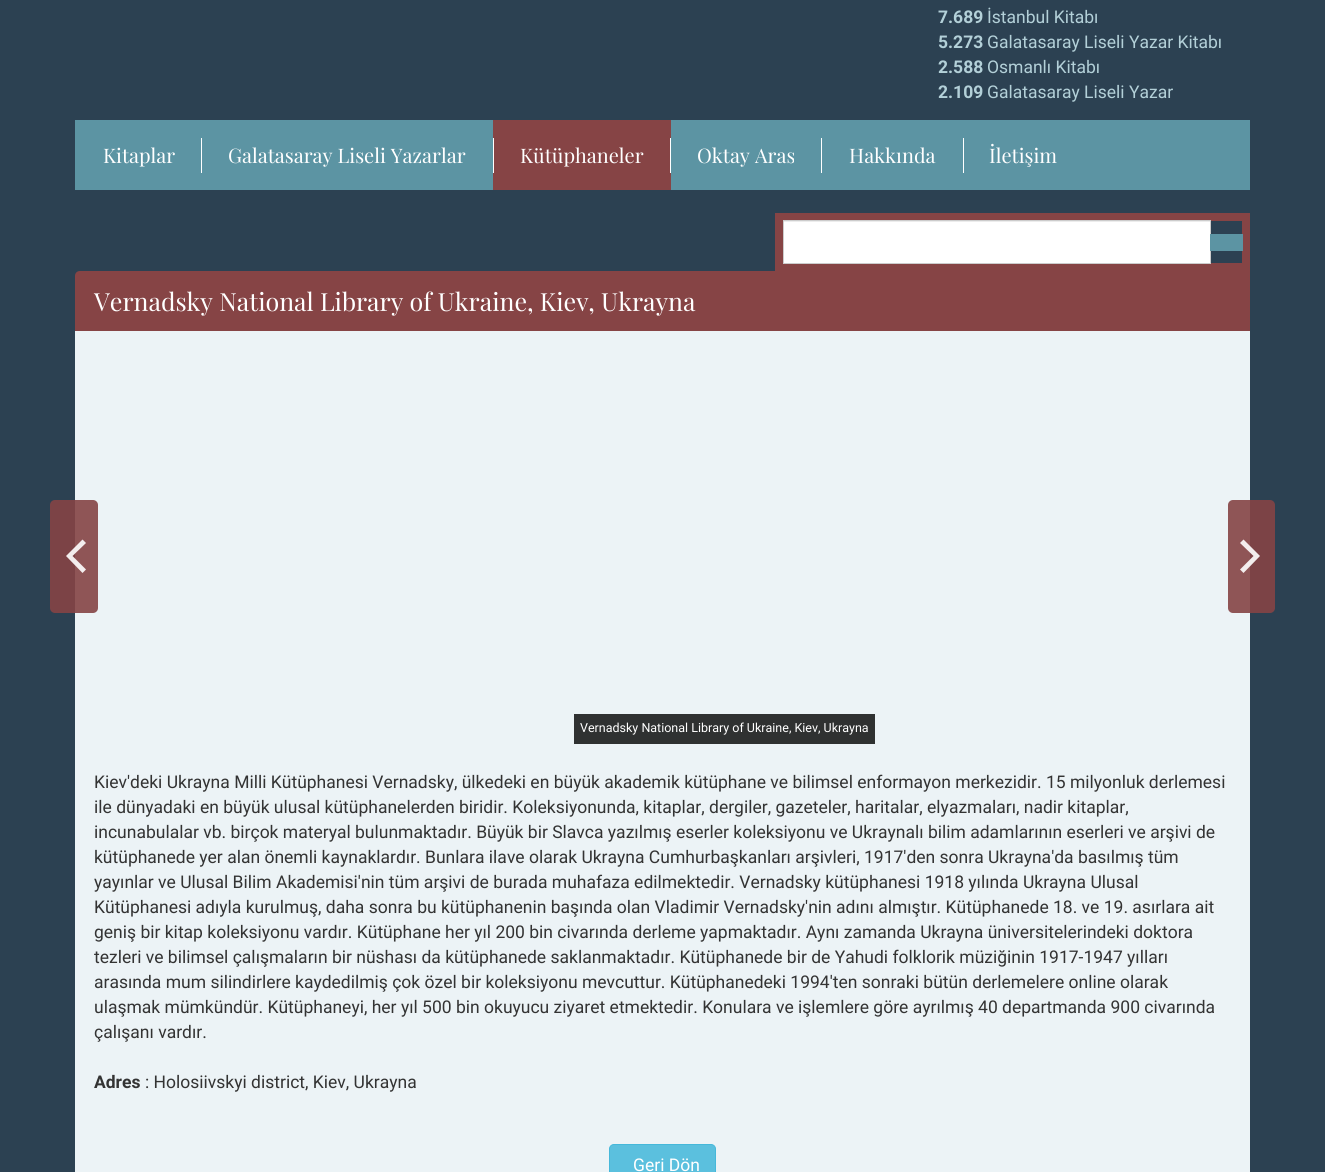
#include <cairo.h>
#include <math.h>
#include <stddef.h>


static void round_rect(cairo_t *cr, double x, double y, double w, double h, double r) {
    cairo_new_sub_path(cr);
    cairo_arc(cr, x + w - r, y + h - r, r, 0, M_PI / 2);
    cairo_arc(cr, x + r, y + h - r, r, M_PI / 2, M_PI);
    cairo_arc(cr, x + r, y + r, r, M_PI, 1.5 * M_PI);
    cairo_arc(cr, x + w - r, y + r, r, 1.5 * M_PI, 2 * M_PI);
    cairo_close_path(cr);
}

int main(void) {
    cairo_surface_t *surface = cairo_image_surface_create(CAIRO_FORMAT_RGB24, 1325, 1172);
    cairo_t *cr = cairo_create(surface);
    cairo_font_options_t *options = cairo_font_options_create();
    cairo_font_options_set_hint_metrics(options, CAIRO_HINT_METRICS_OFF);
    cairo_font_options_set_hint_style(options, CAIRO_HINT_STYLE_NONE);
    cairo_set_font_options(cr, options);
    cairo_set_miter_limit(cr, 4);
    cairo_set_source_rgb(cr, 0.173, 0.255, 0.322);
    cairo_paint(cr);
    cairo_select_font_face(cr, "Roboto", CAIRO_FONT_SLANT_NORMAL, CAIRO_FONT_WEIGHT_BOLD);
    cairo_set_font_size(cr, 17.5);
    cairo_set_source_rgb(cr, 0.702, 0.816, 0.847);
    cairo_move_to(cr, 938, 23);
    cairo_show_text(cr, "7.689");
    cairo_select_font_face(cr, "Roboto", CAIRO_FONT_SLANT_NORMAL, CAIRO_FONT_WEIGHT_NORMAL);
    cairo_move_to(cr, 987, 23);
    cairo_show_text(cr, "İstanbul Kitabı");
    cairo_select_font_face(cr, "Roboto", CAIRO_FONT_SLANT_NORMAL, CAIRO_FONT_WEIGHT_BOLD);
    cairo_move_to(cr, 938, 48);
    cairo_show_text(cr, "5.273");
    cairo_select_font_face(cr, "Roboto", CAIRO_FONT_SLANT_NORMAL, CAIRO_FONT_WEIGHT_NORMAL);
    cairo_move_to(cr, 987, 48);
    cairo_show_text(cr, "Galatasaray Liseli Yazar Kitabı");
    cairo_select_font_face(cr, "Roboto", CAIRO_FONT_SLANT_NORMAL, CAIRO_FONT_WEIGHT_BOLD);
    cairo_move_to(cr, 938, 73);
    cairo_show_text(cr, "2.588");
    cairo_select_font_face(cr, "Roboto", CAIRO_FONT_SLANT_NORMAL, CAIRO_FONT_WEIGHT_NORMAL);
    cairo_move_to(cr, 987, 73);
    cairo_show_text(cr, "Osmanlı Kitabı");
    cairo_select_font_face(cr, "Roboto", CAIRO_FONT_SLANT_NORMAL, CAIRO_FONT_WEIGHT_BOLD);
    cairo_move_to(cr, 938, 98);
    cairo_show_text(cr, "2.109");
    cairo_select_font_face(cr, "Roboto", CAIRO_FONT_SLANT_NORMAL, CAIRO_FONT_WEIGHT_NORMAL);
    cairo_move_to(cr, 987, 98);
    cairo_show_text(cr, "Galatasaray Liseli Yazar");
    cairo_set_source_rgb(cr, 0.361, 0.58, 0.639);
    cairo_rectangle(cr, 75, 120, 1175, 70);
    cairo_fill(cr);
    cairo_select_font_face(cr, "Playfair Display", CAIRO_FONT_SLANT_NORMAL, CAIRO_FONT_WEIGHT_NORMAL);
    cairo_set_font_size(cr, 20);
    cairo_set_source_rgb(cr, 1, 1, 1);
    cairo_move_to(cr, 103, 163);
    cairo_show_text(cr, "Kitaplar");
    cairo_rectangle(cr, 201, 138, 1, 35);
    cairo_fill(cr);
    cairo_move_to(cr, 228, 163);
    cairo_show_text(cr, "Galatasaray Liseli Yazarlar");
    cairo_set_source_rgb(cr, 0.525, 0.267, 0.271);
    cairo_rectangle(cr, 493, 120, 178, 70);
    cairo_fill(cr);
    cairo_set_source_rgb(cr, 1, 1, 1);
    cairo_rectangle(cr, 493, 138, 1, 35);
    cairo_fill(cr);
    cairo_move_to(cr, 520, 163);
    cairo_show_text(cr, "Kütüphaneler");
    cairo_rectangle(cr, 670, 138, 1, 35);
    cairo_fill(cr);
    cairo_move_to(cr, 697, 163);
    cairo_show_text(cr, "Oktay Aras");
    cairo_rectangle(cr, 821, 138, 1, 35);
    cairo_fill(cr);
    cairo_move_to(cr, 849, 163);
    cairo_show_text(cr, "Hakkında");
    cairo_rectangle(cr, 963, 138, 1, 35);
    cairo_fill(cr);
    cairo_move_to(cr, 989, 163);
    cairo_show_text(cr, "İletişim");
    cairo_new_path(cr);
    cairo_move_to(cr, 779, 217);
    cairo_line_to(cr, 1246, 217);
    cairo_line_to(cr, 1246, 267);
    cairo_line_to(cr, 779, 267);
    cairo_close_path(cr);
    cairo_set_source_rgb(cr, 0.525, 0.267, 0.271);
    cairo_set_line_width(cr, 8);
    cairo_stroke(cr);
    cairo_set_source_rgb(cr, 1, 1, 1);
    cairo_rectangle(cr, 784, 222, 426, 41);
    cairo_fill(cr);
    cairo_set_source_rgb(cr, 0.925, 0.925, 0.925);
    cairo_rectangle(cr, 784, 221, 426, 1);
    cairo_fill(cr);
    cairo_rectangle(cr, 783.5, 220.5, 427, 43);
    cairo_set_source_rgb(cr, 0.8, 0.8, 0.8);
    cairo_set_line_width(cr, 1);
    cairo_stroke(cr);
    cairo_set_source_rgb(cr, 0.361, 0.58, 0.639);
    cairo_rectangle(cr, 1210, 234, 33, 17);
    cairo_fill(cr);
    cairo_set_source_rgb(cr, 0.525, 0.267, 0.271);
    cairo_new_path(cr);
    cairo_move_to(cr, 80, 271);
    cairo_line_to(cr, 1250, 271);
    cairo_line_to(cr, 1250, 331);
    cairo_line_to(cr, 75, 331);
    cairo_line_to(cr, 75, 276);
    cairo_curve_to(cr, 75, 273, 77, 271, 80, 271);
    cairo_close_path(cr);
    cairo_fill(cr);
    cairo_set_font_size(cr, 25);
    cairo_set_source_rgb(cr, 1, 1, 1);
    cairo_move_to(cr, 94, 311);
    cairo_show_text(cr, "Vernadsky National Library of Ukraine, Kiev, Ukrayna");
    cairo_set_source_rgb(cr, 0.922, 0.953, 0.961);
    cairo_rectangle(cr, 75, 331, 1175, 841);
    cairo_fill(cr);
    cairo_set_source_rgba(cr, 0.525, 0.267, 0.271, 0.9);
    round_rect(cr, 50, 500, 48, 113, 5);
    cairo_fill(cr);
    cairo_set_source_rgba(cr, 1, 1, 1, 0.9);
    cairo_new_path(cr);
    cairo_move_to(cr, 66, 556);
    cairo_line_to(cr, 82.5, 573);
    cairo_line_to(cr, 86, 569.5);
    cairo_line_to(cr, 72.5, 556);
    cairo_line_to(cr, 86, 543);
    cairo_line_to(cr, 82.5, 539.5);
    cairo_close_path(cr);
    cairo_fill(cr);
    cairo_set_source_rgba(cr, 0.525, 0.267, 0.271, 0.9);
    round_rect(cr, 1228, 500, 47, 113, 5);
    cairo_fill(cr);
    cairo_set_source_rgba(cr, 1, 1, 1, 0.9);
    cairo_new_path(cr);
    cairo_move_to(cr, 1260, 556);
    cairo_line_to(cr, 1243.5, 539.5);
    cairo_line_to(cr, 1240, 543);
    cairo_line_to(cr, 1253.5, 556);
    cairo_line_to(cr, 1240, 569.5);
    cairo_line_to(cr, 1243.5, 573);
    cairo_close_path(cr);
    cairo_fill(cr);
    cairo_set_source_rgb(cr, 0.184, 0.192, 0.192);
    cairo_rectangle(cr, 574, 714, 301, 30);
    cairo_fill(cr);
    cairo_select_font_face(cr, "Roboto", CAIRO_FONT_SLANT_NORMAL, CAIRO_FONT_WEIGHT_NORMAL);
    cairo_set_font_size(cr, 12.5);
    cairo_set_source_rgb(cr, 1, 1, 1);
    cairo_move_to(cr, 580, 732);
    cairo_show_text(cr, "Vernadsky National Library of Ukraine, Kiev, Ukrayna");
    cairo_set_font_size(cr, 17.5);
    cairo_set_source_rgb(cr, 0.2, 0.2, 0.2);
    cairo_move_to(cr, 94, 788);
    cairo_show_text(cr, "Kiev'deki Ukrayna Milli Kütüphanesi Vernadsky, ülkedeki en büyük akademik kütüphane ve bilimsel enformayon merkezidir. 15 milyonluk derlemesi");
    cairo_move_to(cr, 94, 813);
    cairo_show_text(cr, "ile dünyadaki en büyük ulusal kütüphanelerden biridir. Koleksiyonunda, kitaplar, dergiler, gazeteler, haritalar, elyazmaları, nadir kitaplar,");
    cairo_move_to(cr, 94, 838);
    cairo_show_text(cr, "incunabulalar vb. birçok materyal bulunmaktadır. Büyük bir Slavca yazılmış eserler koleksiyonu ve Ukraynalı bilim adamlarının eserleri ve arşivi de");
    cairo_move_to(cr, 94, 863);
    cairo_show_text(cr, "kütüphanede yer alan önemli kaynaklardır. Bunlara ilave olarak Ukrayna Cumhurbaşkanları arşivleri, 1917'den sonra Ukrayna'da basılmış tüm");
    cairo_move_to(cr, 94, 888);
    cairo_show_text(cr, "yayınlar ve Ulusal Bilim Akademisi'nin tüm arşivi de burada muhafaza edilmektedir. Vernadsky kütüphanesi 1918 yılında Ukrayna Ulusal");
    cairo_move_to(cr, 94, 913);
    cairo_show_text(cr, "Kütüphanesi adıyla kurulmuş, daha sonra bu kütüphanenin başında olan Vladimir Vernadsky'nin adını almıştır. Kütüphanede 18. ve 19. asırlara ait");
    cairo_move_to(cr, 94, 938);
    cairo_show_text(cr, "geniş bir kitap koleksiyonu vardır. Kütüphane her yıl 200 bin civarında derleme yapmaktadır. Aynı zamanda Ukrayna üniversitelerindeki doktora");
    cairo_move_to(cr, 94, 963);
    cairo_show_text(cr, "tezleri ve bilimsel çalışmaların bir nüshası da kütüphanede saklanmaktadır. Kütüphanede bir de Yahudi folklorik müziğinin 1917-1947 yılları");
    cairo_move_to(cr, 94, 988);
    cairo_show_text(cr, "arasında mum silindirlere kaydedilmiş çok özel bir koleksiyonu mevcuttur. Kütüphanedeki 1994'ten sonraki bütün derlemelere online olarak");
    cairo_move_to(cr, 94, 1013);
    cairo_show_text(cr, "ulaşmak mümkündür. Kütüphaneyi, her yıl 500 bin okuyucu ziyaret etmektedir. Konulara ve işlemlere göre ayrılmış 40 departmanda 900 civarında");
    cairo_move_to(cr, 94, 1038);
    cairo_show_text(cr, "çalışanı vardır.");
    cairo_select_font_face(cr, "Roboto", CAIRO_FONT_SLANT_NORMAL, CAIRO_FONT_WEIGHT_BOLD);
    cairo_move_to(cr, 94, 1088);
    cairo_show_text(cr, "Adres");
    cairo_select_font_face(cr, "Roboto", CAIRO_FONT_SLANT_NORMAL, CAIRO_FONT_WEIGHT_NORMAL);
    cairo_move_to(cr, 145, 1088);
    cairo_show_text(cr, ": Holosiivskyi district, Kiev, Ukrayna");
    cairo_set_source_rgb(cr, 0.357, 0.753, 0.871);
    round_rect(cr, 609.5, 1144.5, 106, 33, 4.5);
    cairo_fill_preserve(cr);
    cairo_set_source_rgb(cr, 0.275, 0.722, 0.855);
    cairo_stroke(cr);
    cairo_set_source_rgb(cr, 1, 1, 1);
    cairo_move_to(cr, 633, 1171);
    cairo_show_text(cr, "Geri Dön");
    cairo_surface_write_to_png(surface, "page.png");
    cairo_font_options_destroy(options);
    cairo_destroy(cr);
    cairo_surface_destroy(surface);
    return 0;
}
